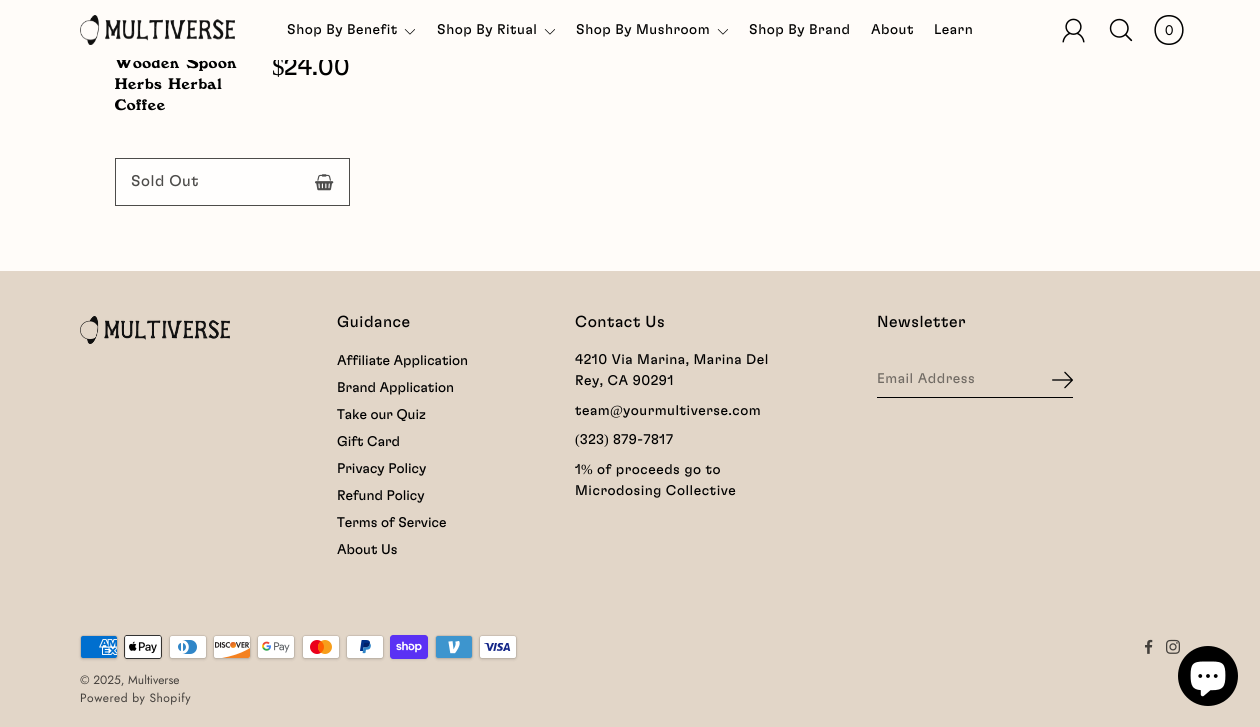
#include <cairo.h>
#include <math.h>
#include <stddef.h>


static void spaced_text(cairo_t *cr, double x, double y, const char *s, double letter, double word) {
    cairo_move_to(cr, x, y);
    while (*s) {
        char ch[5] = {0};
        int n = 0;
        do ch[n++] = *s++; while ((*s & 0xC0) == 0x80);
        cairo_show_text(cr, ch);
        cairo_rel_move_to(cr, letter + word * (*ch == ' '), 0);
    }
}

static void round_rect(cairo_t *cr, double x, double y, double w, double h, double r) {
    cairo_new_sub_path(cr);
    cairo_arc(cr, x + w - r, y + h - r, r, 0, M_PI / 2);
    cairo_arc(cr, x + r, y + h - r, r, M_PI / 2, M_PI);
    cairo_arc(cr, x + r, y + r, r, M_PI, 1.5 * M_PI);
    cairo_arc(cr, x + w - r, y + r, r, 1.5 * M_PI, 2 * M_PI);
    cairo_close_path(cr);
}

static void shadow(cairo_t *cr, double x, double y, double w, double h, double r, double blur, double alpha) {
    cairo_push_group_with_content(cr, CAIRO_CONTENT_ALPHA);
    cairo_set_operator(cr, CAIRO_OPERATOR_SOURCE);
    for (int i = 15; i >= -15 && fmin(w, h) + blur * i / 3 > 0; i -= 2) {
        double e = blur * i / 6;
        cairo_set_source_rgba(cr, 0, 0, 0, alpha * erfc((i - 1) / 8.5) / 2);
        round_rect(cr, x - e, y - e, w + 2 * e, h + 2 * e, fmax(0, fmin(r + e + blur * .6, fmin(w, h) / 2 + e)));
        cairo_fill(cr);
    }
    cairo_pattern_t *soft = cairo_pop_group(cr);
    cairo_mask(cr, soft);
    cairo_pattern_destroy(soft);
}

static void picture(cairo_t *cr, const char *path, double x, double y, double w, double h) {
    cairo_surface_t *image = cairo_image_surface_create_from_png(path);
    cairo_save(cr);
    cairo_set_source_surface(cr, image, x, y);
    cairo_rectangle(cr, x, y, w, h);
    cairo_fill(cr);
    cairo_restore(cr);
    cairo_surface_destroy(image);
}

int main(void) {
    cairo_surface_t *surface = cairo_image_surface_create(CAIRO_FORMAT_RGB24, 1260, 727);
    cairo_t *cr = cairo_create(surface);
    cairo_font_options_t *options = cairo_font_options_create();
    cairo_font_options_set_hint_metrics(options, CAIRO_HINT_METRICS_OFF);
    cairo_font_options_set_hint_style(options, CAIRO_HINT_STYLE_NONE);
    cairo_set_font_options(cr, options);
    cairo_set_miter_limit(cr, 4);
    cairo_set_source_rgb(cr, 1, 0.988, 0.973);
    cairo_paint(cr);
    cairo_select_font_face(cr, "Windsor", CAIRO_FONT_SLANT_NORMAL, CAIRO_FONT_WEIGHT_NORMAL);
    cairo_set_font_size(cr, 16);
    cairo_set_source_rgb(cr, 0, 0, 0);
    spaced_text(cr, 115, 68, "Wooden Spoon", 0.5, 0);
    cairo_select_font_face(cr, "Liberation Serif", CAIRO_FONT_SLANT_NORMAL, CAIRO_FONT_WEIGHT_NORMAL);
    cairo_set_font_size(cr, 25);
    cairo_move_to(cr, 272, 75);
    cairo_show_text(cr, "$");
    cairo_select_font_face(cr, "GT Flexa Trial", CAIRO_FONT_SLANT_NORMAL, CAIRO_FONT_WEIGHT_NORMAL);
    cairo_move_to(cr, 284, 75);
    cairo_show_text(cr, "24.00");
    cairo_set_source_rgb(cr, 1, 0.988, 0.973);
    cairo_rectangle(cr, 115, 56, 233, 4);
    cairo_fill(cr);
    picture(cr, "img1.png", 80, 15, 155, 30);
    cairo_set_font_size(cr, 14);
    cairo_set_source_rgb(cr, 0, 0, 0);
    spaced_text(cr, 287, 34, "Shop By Benefit", 0.5, 0);
    picture(cr, "img2.png", 404, 29, 11, 6);
    spaced_text(cr, 437, 34, "Shop By Ritual", 0.5, 0);
    picture(cr, "img2.png", 544, 29, 11, 6);
    spaced_text(cr, 576, 34, "Shop By Mushroom", 0.5, 0);
    picture(cr, "img2.png", 717, 29, 11, 6);
    spaced_text(cr, 749, 34, "Shop By Brand", 0.5, 0);
    spaced_text(cr, 871, 34, "About", 0.5, 0);
    spaced_text(cr, 934, 34, "Learn", 0.5, 0);
    picture(cr, "img3.png", 1062, 18, 23, 25);
    picture(cr, "img4.png", 1109, 18, 24, 24);
    cairo_new_path(cr);
    cairo_move_to(cr, 1169, 45);
    cairo_curve_to(cr, 1149.5, 45, 1149.5, 15, 1169, 15);
    cairo_curve_to(cr, 1188.5, 15, 1188.5, 45, 1169, 45);
    cairo_close_path(cr);
    cairo_move_to(cr, 1169, 43.5);
    cairo_curve_to(cr, 1186.5, 43.5, 1186.5, 16.5, 1169, 16.5);
    cairo_curve_to(cr, 1151.5, 16.5, 1151.5, 43.5, 1169, 43.5);
    cairo_close_path(cr);
    cairo_fill(cr);
    cairo_select_font_face(cr, "Jost", CAIRO_FONT_SLANT_NORMAL, CAIRO_FONT_WEIGHT_NORMAL);
    cairo_move_to(cr, 1165, 35);
    cairo_show_text(cr, "0");
    cairo_select_font_face(cr, "Windsor", CAIRO_FONT_SLANT_NORMAL, CAIRO_FONT_WEIGHT_NORMAL);
    cairo_set_font_size(cr, 16);
    spaced_text(cr, 115, 89, "Herbs Herbal", 0.5, 0);
    spaced_text(cr, 115, 110, "Coffee", 0.5, 0);
    cairo_set_source_rgb(cr, 1, 0.996, 0.992);
    cairo_rectangle(cr, 115.5, 158.5, 234, 47);
    cairo_fill_preserve(cr);
    cairo_set_source_rgb(cr, 0.302, 0.298, 0.29);
    cairo_set_line_width(cr, 1);
    cairo_stroke(cr);
    cairo_select_font_face(cr, "GT Flexa Trial", CAIRO_FONT_SLANT_NORMAL, CAIRO_FONT_WEIGHT_NORMAL);
    cairo_set_font_size(cr, 15.5);
    spaced_text(cr, 131, 186, "Sold Out", 0.5, 0);
    picture(cr, "img5.png", 315, 174, 19, 17);
    cairo_set_source_rgb(cr, 0.886, 0.839, 0.784);
    cairo_rectangle(cr, 0, 271, 1260, 456);
    cairo_fill(cr);
    picture(cr, "img6.png", 80, 316, 150, 28);
    cairo_set_font_size(cr, 16);
    cairo_set_source_rgb(cr, 0, 0, 0);
    spaced_text(cr, 337, 327, "Guidance", 0.5, 0);
    cairo_set_font_size(cr, 14);
    cairo_move_to(cr, 337, 365);
    cairo_show_text(cr, "Affiliate Application");
    cairo_move_to(cr, 337, 392);
    cairo_show_text(cr, "Brand Application");
    cairo_move_to(cr, 337, 419);
    cairo_show_text(cr, "Take our Quiz");
    cairo_move_to(cr, 337, 446);
    cairo_show_text(cr, "Gift Card");
    cairo_move_to(cr, 337, 473);
    cairo_show_text(cr, "Privacy Policy");
    cairo_move_to(cr, 337, 500);
    cairo_show_text(cr, "Refund Policy");
    cairo_move_to(cr, 337, 527);
    cairo_show_text(cr, "Terms of Service");
    cairo_move_to(cr, 337, 554);
    cairo_show_text(cr, "About Us");
    cairo_set_font_size(cr, 16);
    spaced_text(cr, 575, 327, "Contact Us", 0.5, 0);
    cairo_set_font_size(cr, 14);
    spaced_text(cr, 575, 364, "4210 Via Marina, Marina Del", 0.5, 0);
    spaced_text(cr, 575, 385, "Rey, CA 90291", 0.5, 0);
    spaced_text(cr, 575, 415, "team", 0.5, 0);
    cairo_select_font_face(cr, "Liberation Serif", CAIRO_FONT_SLANT_NORMAL, CAIRO_FONT_WEIGHT_NORMAL);
    spaced_text(cr, 610, 415, "@", 0.5, 0);
    cairo_select_font_face(cr, "GT Flexa Trial", CAIRO_FONT_SLANT_NORMAL, CAIRO_FONT_WEIGHT_NORMAL);
    spaced_text(cr, 623, 415, "yourmultiverse.com", 0.5, 0);
    cairo_select_font_face(cr, "Liberation Serif", CAIRO_FONT_SLANT_NORMAL, CAIRO_FONT_WEIGHT_NORMAL);
    spaced_text(cr, 575, 444, "(", 0.5, 0);
    cairo_select_font_face(cr, "GT Flexa Trial", CAIRO_FONT_SLANT_NORMAL, CAIRO_FONT_WEIGHT_NORMAL);
    spaced_text(cr, 580, 444, "323", 0.5, 0);
    cairo_select_font_face(cr, "Liberation Serif", CAIRO_FONT_SLANT_NORMAL, CAIRO_FONT_WEIGHT_NORMAL);
    spaced_text(cr, 604, 444, ")", 0.5, 0);
    cairo_select_font_face(cr, "GT Flexa Trial", CAIRO_FONT_SLANT_NORMAL, CAIRO_FONT_WEIGHT_NORMAL);
    spaced_text(cr, 613, 444, "879-7817", 0.5, 0);
    spaced_text(cr, 575, 474, "1", 0.5, 0);
    cairo_select_font_face(cr, "Liberation Serif", CAIRO_FONT_SLANT_NORMAL, CAIRO_FONT_WEIGHT_NORMAL);
    spaced_text(cr, 581, 474, "%", 0.5, 0);
    cairo_select_font_face(cr, "GT Flexa Trial", CAIRO_FONT_SLANT_NORMAL, CAIRO_FONT_WEIGHT_NORMAL);
    spaced_text(cr, 597, 474, "of proceeds go to", 0.5, 0);
    spaced_text(cr, 575, 495, "Microdosing Collective", 0.5, 0);
    cairo_set_font_size(cr, 16);
    spaced_text(cr, 877, 327, "Newsletter", 0.5, 0);
    cairo_rectangle(cr, 877, 397, 196, 1);
    cairo_fill(cr);
    cairo_set_font_size(cr, 14);
    cairo_set_source_rgb(cr, 0.443, 0.42, 0.392);
    spaced_text(cr, 877, 383, "Email Address", 0.5, 0);
    picture(cr, "img7.png", 1052, 371, 21, 18);
    picture(cr, "img8.png", 1145, 639, 8, 15);
    picture(cr, "img9.png", 1166, 639, 14, 15);
    cairo_set_source_rgb(cr, 0, 0, 0);
    shadow(cr, 80, 636, 38, 24, 3, 1, 0.1);
    picture(cr, "img10.png", 80, 635, 38, 24);
    shadow(cr, 124, 636, 38, 24, 3, 1, 0.1);
    picture(cr, "img11.png", 124, 635, 38, 24);
    shadow(cr, 169, 636, 38, 24, 3, 1, 0.1);
    picture(cr, "img12.png", 169, 635, 38, 24);
    shadow(cr, 213, 636, 38, 24, 3, 1, 0.1);
    picture(cr, "img13.png", 213, 635, 38, 24);
    shadow(cr, 257, 636, 38, 24, 3, 1, 0.1);
    picture(cr, "img14.png", 257, 635, 38, 24);
    shadow(cr, 302, 636, 38, 24, 3, 1, 0.1);
    picture(cr, "img15.png", 302, 635, 38, 24);
    shadow(cr, 346, 636, 38, 24, 3, 1, 0.1);
    picture(cr, "img16.png", 346, 635, 38, 24);
    shadow(cr, 390, 636, 38, 24, 3, 1, 0.1);
    picture(cr, "img17.png", 390, 635, 38, 24);
    shadow(cr, 435, 636, 38, 24, 3, 1, 0.1);
    picture(cr, "img18.png", 435, 635, 38, 24);
    shadow(cr, 479, 636, 38, 24, 3, 1, 0.1);
    picture(cr, "img19.png", 479, 635, 38, 24);
    cairo_select_font_face(cr, "Jost", CAIRO_FONT_SLANT_NORMAL, CAIRO_FONT_WEIGHT_NORMAL);
    cairo_set_font_size(cr, 12);
    cairo_set_source_rgb(cr, 0.267, 0.251, 0.235);
    cairo_move_to(cr, 80, 684);
    cairo_show_text(cr, "© 2025, Multiverse");
    spaced_text(cr, 80, 702, "Powered by Shopify", 0.5, 0);
    cairo_set_source_rgb(cr, 0, 0, 0);
    cairo_new_path(cr);
    cairo_arc(cr, 1208, 676, 30, 0, 2 * M_PI);
    cairo_fill(cr);
    picture(cr, "img20.png", 1190, 661, 36, 36);
    cairo_surface_write_to_png(surface, "page.png");
    cairo_font_options_destroy(options);
    cairo_destroy(cr);
    cairo_surface_destroy(surface);
    return 0;
}
